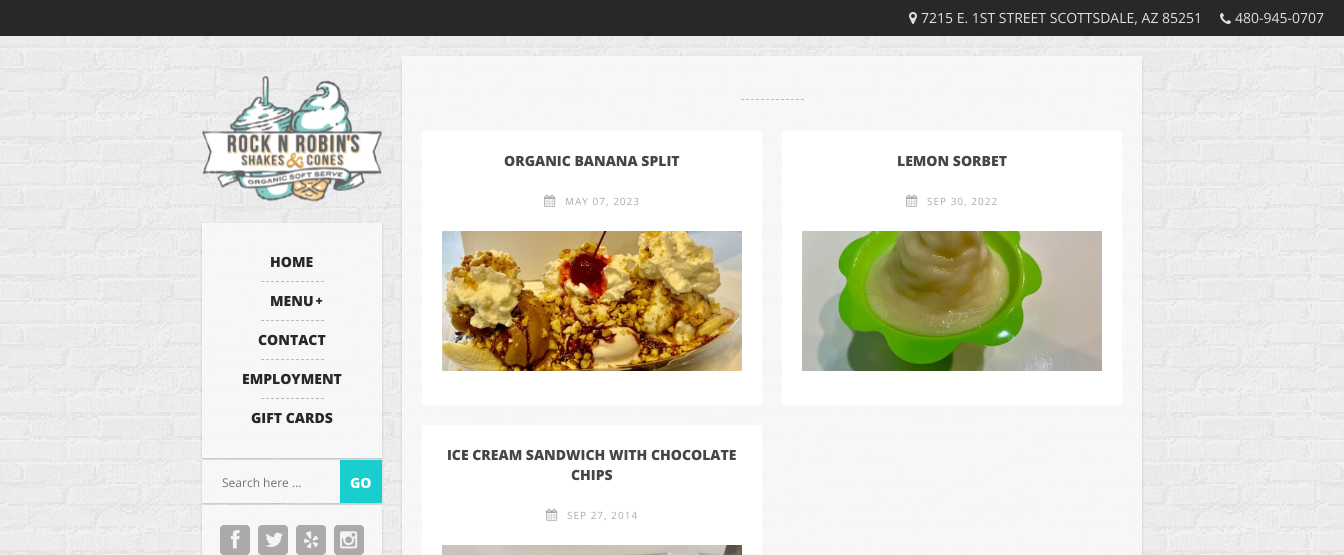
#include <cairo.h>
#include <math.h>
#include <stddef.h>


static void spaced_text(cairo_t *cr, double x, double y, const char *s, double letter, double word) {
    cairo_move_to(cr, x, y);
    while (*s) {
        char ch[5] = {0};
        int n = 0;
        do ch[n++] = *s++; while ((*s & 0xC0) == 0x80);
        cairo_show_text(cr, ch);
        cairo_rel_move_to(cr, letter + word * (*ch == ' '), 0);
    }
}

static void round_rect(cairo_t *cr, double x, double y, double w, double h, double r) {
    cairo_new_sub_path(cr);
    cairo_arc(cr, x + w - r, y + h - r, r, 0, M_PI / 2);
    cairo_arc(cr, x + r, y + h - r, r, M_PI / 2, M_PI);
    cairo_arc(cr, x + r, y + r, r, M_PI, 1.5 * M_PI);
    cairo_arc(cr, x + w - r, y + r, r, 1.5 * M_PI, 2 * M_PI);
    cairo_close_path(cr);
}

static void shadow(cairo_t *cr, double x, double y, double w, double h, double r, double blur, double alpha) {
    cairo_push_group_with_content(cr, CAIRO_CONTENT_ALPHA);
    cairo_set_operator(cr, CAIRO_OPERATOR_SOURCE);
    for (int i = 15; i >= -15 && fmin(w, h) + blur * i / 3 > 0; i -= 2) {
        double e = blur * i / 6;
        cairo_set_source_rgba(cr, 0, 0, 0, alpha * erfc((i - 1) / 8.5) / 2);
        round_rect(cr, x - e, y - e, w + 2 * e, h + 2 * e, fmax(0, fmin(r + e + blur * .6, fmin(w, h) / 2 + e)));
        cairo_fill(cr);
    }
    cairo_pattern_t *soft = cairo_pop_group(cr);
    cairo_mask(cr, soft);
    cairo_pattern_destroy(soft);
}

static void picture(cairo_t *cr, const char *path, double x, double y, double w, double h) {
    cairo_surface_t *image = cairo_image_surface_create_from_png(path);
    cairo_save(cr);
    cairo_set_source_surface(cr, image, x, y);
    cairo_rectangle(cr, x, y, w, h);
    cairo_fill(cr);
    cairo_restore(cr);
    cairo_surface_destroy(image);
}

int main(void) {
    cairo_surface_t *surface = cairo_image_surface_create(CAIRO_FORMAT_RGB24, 1344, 555);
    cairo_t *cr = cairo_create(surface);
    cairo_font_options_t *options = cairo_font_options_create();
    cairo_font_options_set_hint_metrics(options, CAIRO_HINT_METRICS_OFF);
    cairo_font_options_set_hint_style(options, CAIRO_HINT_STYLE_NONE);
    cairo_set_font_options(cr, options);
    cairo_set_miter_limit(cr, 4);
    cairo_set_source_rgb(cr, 1, 1, 1);
    cairo_paint(cr);
    picture(cr, "img1.png", 0, 36, 1344, 519);
    cairo_set_source_rgb(cr, 0.149, 0.157, 0.165);
    cairo_rectangle(cr, 0, 0, 1344, 36);
    cairo_fill(cr);
    picture(cr, "img2.png", 909, 12, 8, 12);
    cairo_select_font_face(cr, "Open Sans", CAIRO_FONT_SLANT_NORMAL, CAIRO_FONT_WEIGHT_NORMAL);
    cairo_set_font_size(cr, 14);
    cairo_set_source_rgb(cr, 0.878, 0.878, 0.878);
    cairo_move_to(cr, 921, 23);
    cairo_show_text(cr, "7215 E. 1ST STREET SCOTTSDALE, AZ 85251");
    picture(cr, "img3.png", 1220, 13, 11, 11);
    cairo_move_to(cr, 1235, 23);
    cairo_show_text(cr, "480-945-0707");
    picture(cr, "img4.png", 202, 76, 180, 126);
    cairo_save(cr);
    cairo_set_fill_rule(cr, CAIRO_FILL_RULE_EVEN_ODD);
    cairo_new_path(cr);
    cairo_move_to(cr, 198, 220);
    cairo_line_to(cr, 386, 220);
    cairo_line_to(cr, 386, 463);
    cairo_line_to(cr, 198, 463);
    cairo_close_path(cr);
    cairo_move_to(cr, 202, 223);
    cairo_line_to(cr, 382, 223);
    cairo_line_to(cr, 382, 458);
    cairo_line_to(cr, 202, 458);
    cairo_close_path(cr);
    cairo_clip(cr);
    cairo_set_source_rgb(cr, 0.118, 0.275, 0.275);
    shadow(cr, 202, 224, 180, 235, 0, 1, 0.23);
    cairo_restore(cr);
    cairo_set_source_rgba(cr, 0.976, 0.976, 0.976, 0.9);
    cairo_rectangle(cr, 202, 223, 180, 235);
    cairo_fill(cr);
    cairo_select_font_face(cr, "Open Sans ExtraBold", CAIRO_FONT_SLANT_NORMAL, CAIRO_FONT_WEIGHT_NORMAL);
    cairo_set_source_rgb(cr, 0.149, 0.157, 0.165);
    cairo_move_to(cr, 270, 267);
    cairo_show_text(cr, "HOME");
    cairo_new_path(cr);
    cairo_move_to(cr, 261, 281.5);
    cairo_line_to(cr, 324, 281.5);
    cairo_set_source_rgb(cr, 0.733, 0.733, 0.733);
    cairo_set_line_width(cr, 1);
    cairo_set_dash(cr, (double[]){3, 2}, 2, 0);
    cairo_stroke(cr);
    cairo_set_source_rgb(cr, 0.149, 0.157, 0.165);
    cairo_move_to(cr, 270, 306);
    cairo_show_text(cr, "MENU");
    picture(cr, "img5.png", 316, 297, 7, 7);
    cairo_new_path(cr);
    cairo_move_to(cr, 261, 320.5);
    cairo_line_to(cr, 324, 320.5);
    cairo_set_source_rgb(cr, 0.733, 0.733, 0.733);
    cairo_stroke(cr);
    cairo_set_source_rgb(cr, 0.149, 0.157, 0.165);
    cairo_move_to(cr, 258, 345);
    cairo_show_text(cr, "CONTACT");
    cairo_new_path(cr);
    cairo_move_to(cr, 261, 359.5);
    cairo_line_to(cr, 324, 359.5);
    cairo_set_source_rgb(cr, 0.733, 0.733, 0.733);
    cairo_stroke(cr);
    cairo_set_source_rgb(cr, 0.149, 0.157, 0.165);
    cairo_move_to(cr, 242, 384);
    cairo_show_text(cr, "EMPLOYMENT");
    cairo_new_path(cr);
    cairo_move_to(cr, 261, 398.5);
    cairo_line_to(cr, 324, 398.5);
    cairo_set_source_rgb(cr, 0.733, 0.733, 0.733);
    cairo_stroke(cr);
    cairo_set_source_rgb(cr, 0.149, 0.157, 0.165);
    cairo_move_to(cr, 251, 423);
    cairo_show_text(cr, "GIFT CARDS");
    cairo_save(cr);
    cairo_set_fill_rule(cr, CAIRO_FILL_RULE_EVEN_ODD);
    cairo_new_path(cr);
    cairo_move_to(cr, 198, 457);
    cairo_line_to(cr, 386, 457);
    cairo_line_to(cr, 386, 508);
    cairo_line_to(cr, 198, 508);
    cairo_close_path(cr);
    cairo_move_to(cr, 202, 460);
    cairo_line_to(cr, 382, 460);
    cairo_line_to(cr, 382, 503);
    cairo_line_to(cr, 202, 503);
    cairo_close_path(cr);
    cairo_clip(cr);
    cairo_set_source_rgb(cr, 0.118, 0.275, 0.275);
    shadow(cr, 202, 461, 180, 43, 0, 1, 0.23);
    cairo_restore(cr);
    cairo_set_source_rgba(cr, 0.976, 0.976, 0.976, 0.9);
    cairo_rectangle(cr, 202, 460, 138, 43);
    cairo_fill(cr);
    cairo_select_font_face(cr, "Open Sans", CAIRO_FONT_SLANT_NORMAL, CAIRO_FONT_WEIGHT_NORMAL);
    cairo_set_font_size(cr, 12);
    cairo_set_source_rgb(cr, 0.439, 0.447, 0.455);
    cairo_move_to(cr, 222, 487);
    cairo_show_text(cr, "Search here ...");
    cairo_set_source_rgb(cr, 0.094, 0.808, 0.808);
    cairo_rectangle(cr, 340, 460, 42, 43);
    cairo_fill(cr);
    cairo_select_font_face(cr, "Open Sans ExtraBold", CAIRO_FONT_SLANT_NORMAL, CAIRO_FONT_WEIGHT_NORMAL);
    cairo_set_font_size(cr, 14);
    cairo_set_source_rgb(cr, 1, 1, 1);
    cairo_move_to(cr, 350, 488);
    cairo_show_text(cr, "GO");
    cairo_save(cr);
    cairo_set_fill_rule(cr, CAIRO_FILL_RULE_EVEN_ODD);
    cairo_new_path(cr);
    cairo_move_to(cr, 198, 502);
    cairo_line_to(cr, 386, 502);
    cairo_line_to(cr, 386, 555);
    cairo_line_to(cr, 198, 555);
    cairo_close_path(cr);
    cairo_move_to(cr, 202, 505);
    cairo_line_to(cr, 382, 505);
    cairo_line_to(cr, 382, 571);
    cairo_curve_to(cr, 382, 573, 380, 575, 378, 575);
    cairo_line_to(cr, 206, 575);
    cairo_curve_to(cr, 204, 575, 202, 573, 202, 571);
    cairo_close_path(cr);
    cairo_clip(cr);
    cairo_set_source_rgb(cr, 0.118, 0.275, 0.275);
    shadow(cr, 202, 506, 180, 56, 4, 1, 0.23);
    cairo_restore(cr);
    cairo_set_source_rgba(cr, 0.976, 0.976, 0.976, 0.9);
    cairo_rectangle(cr, 202, 505, 180, 50);
    cairo_fill(cr);
    cairo_set_source_rgb(cr, 0.667, 0.667, 0.667);
    round_rect(cr, 220, 525, 30, 30, 4);
    cairo_fill(cr);
    picture(cr, "img6.png", 231, 530, 9, 19);
    round_rect(cr, 258, 525, 30, 30, 4);
    cairo_fill(cr);
    picture(cr, "img7.png", 265, 532, 18, 15);
    round_rect(cr, 296, 525, 30, 30, 4);
    cairo_fill(cr);
    picture(cr, "img8.png", 304, 531, 15, 18);
    round_rect(cr, 334, 525, 30, 30, 4);
    cairo_fill(cr);
    picture(cr, "img9.png", 340, 531, 18, 18);
    cairo_save(cr);
    cairo_set_fill_rule(cr, CAIRO_FILL_RULE_EVEN_ODD);
    cairo_new_path(cr);
    cairo_move_to(cr, 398, 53);
    cairo_line_to(cr, 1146, 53);
    cairo_line_to(cr, 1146, 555);
    cairo_line_to(cr, 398, 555);
    cairo_close_path(cr);
    cairo_move_to(cr, 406, 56);
    cairo_line_to(cr, 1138, 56);
    cairo_curve_to(cr, 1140, 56, 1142, 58, 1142, 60);
    cairo_line_to(cr, 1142, 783);
    cairo_curve_to(cr, 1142, 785, 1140, 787, 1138, 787);
    cairo_line_to(cr, 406, 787);
    cairo_curve_to(cr, 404, 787, 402, 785, 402, 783);
    cairo_line_to(cr, 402, 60);
    cairo_curve_to(cr, 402, 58, 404, 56, 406, 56);
    cairo_close_path(cr);
    cairo_clip(cr);
    cairo_set_source_rgb(cr, 0.118, 0.275, 0.275);
    shadow(cr, 402, 57, 740, 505, 4, 1, 0.23);
    cairo_restore(cr);
    cairo_set_source_rgba(cr, 0.976, 0.976, 0.976, 0.9);
    cairo_rectangle(cr, 402, 56, 740, 499);
    cairo_fill(cr);
    cairo_new_path(cr);
    cairo_move_to(cr, 741, 99.5);
    cairo_line_to(cr, 804, 99.5);
    cairo_set_source_rgb(cr, 0.733, 0.733, 0.733);
    cairo_stroke(cr);
    cairo_set_source_rgb(cr, 1, 1, 1);
    cairo_rectangle(cr, 422, 131, 340, 274);
    cairo_fill(cr);
    cairo_set_source_rgb(cr, 0.267, 0.275, 0.282);
    cairo_move_to(cr, 504, 166);
    cairo_show_text(cr, "ORGANIC BANANA SPLIT");
    picture(cr, "img10.png", 544, 194, 12, 13);
    cairo_select_font_face(cr, "Open Sans", CAIRO_FONT_SLANT_NORMAL, CAIRO_FONT_WEIGHT_NORMAL);
    cairo_set_font_size(cr, 10);
    cairo_set_source_rgb(cr, 0.667, 0.667, 0.667);
    spaced_text(cr, 565, 205, "MAY 07, 2023", 1, 0);
    picture(cr, "img11.png", 442, 231, 300, 140);
    cairo_set_source_rgb(cr, 1, 1, 1);
    cairo_rectangle(cr, 782, 131, 340, 274);
    cairo_fill(cr);
    cairo_select_font_face(cr, "Open Sans ExtraBold", CAIRO_FONT_SLANT_NORMAL, CAIRO_FONT_WEIGHT_NORMAL);
    cairo_set_font_size(cr, 14);
    cairo_set_source_rgb(cr, 0.267, 0.275, 0.282);
    cairo_move_to(cr, 897, 166);
    cairo_show_text(cr, "LEMON SORBET");
    picture(cr, "img10.png", 906, 194, 12, 13);
    cairo_select_font_face(cr, "Open Sans", CAIRO_FONT_SLANT_NORMAL, CAIRO_FONT_WEIGHT_NORMAL);
    cairo_set_font_size(cr, 10);
    cairo_set_source_rgb(cr, 0.667, 0.667, 0.667);
    spaced_text(cr, 927, 205, "SEP 30, 2022", 1, 0);
    picture(cr, "img12.png", 802, 231, 300, 140);
    cairo_set_source_rgb(cr, 1, 1, 1);
    cairo_rectangle(cr, 422, 425, 340, 130);
    cairo_fill(cr);
    cairo_select_font_face(cr, "Open Sans ExtraBold", CAIRO_FONT_SLANT_NORMAL, CAIRO_FONT_WEIGHT_NORMAL);
    cairo_set_font_size(cr, 14);
    cairo_set_source_rgb(cr, 0.267, 0.275, 0.282);
    cairo_move_to(cr, 447, 460);
    cairo_show_text(cr, "ICE CREAM SANDWICH WITH CHOCOLATE");
    cairo_move_to(cr, 571, 480);
    cairo_show_text(cr, "CHIPS");
    picture(cr, "img10.png", 546, 508, 12, 13);
    cairo_select_font_face(cr, "Open Sans", CAIRO_FONT_SLANT_NORMAL, CAIRO_FONT_WEIGHT_NORMAL);
    cairo_set_font_size(cr, 10);
    cairo_set_source_rgb(cr, 0.667, 0.667, 0.667);
    spaced_text(cr, 567, 519, "SEP 27, 2014", 1, 0);
    picture(cr, "img13.png", 442, 545, 300, 10);
    cairo_surface_write_to_png(surface, "page.png");
    cairo_font_options_destroy(options);
    cairo_destroy(cr);
    cairo_surface_destroy(surface);
    return 0;
}
